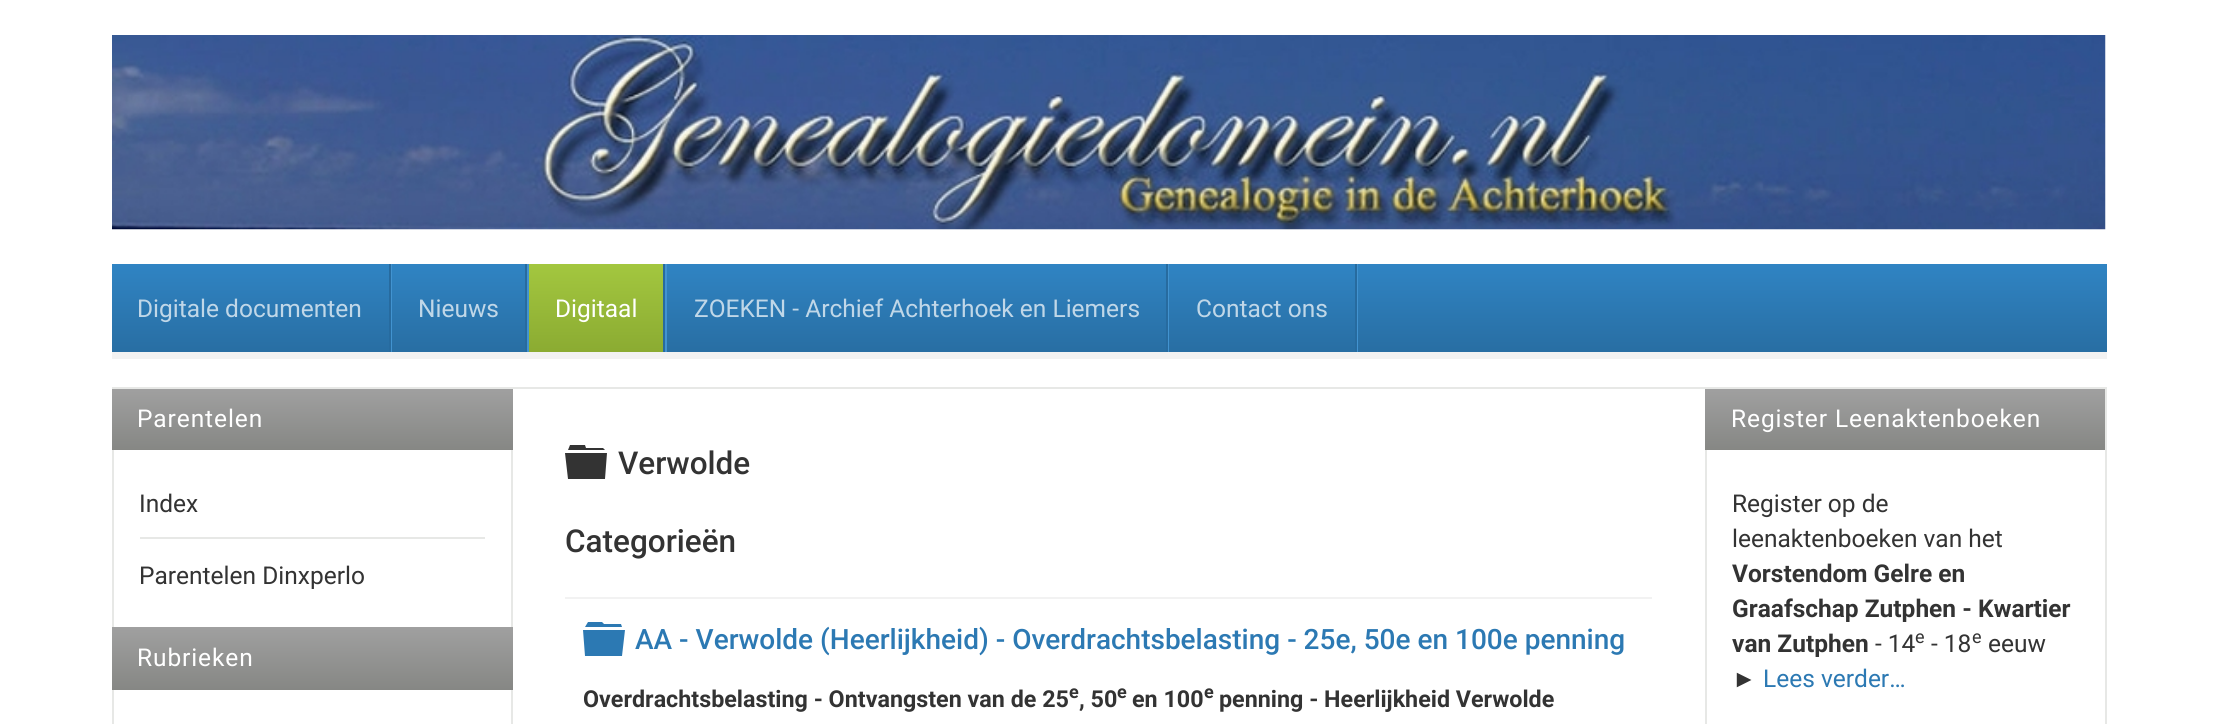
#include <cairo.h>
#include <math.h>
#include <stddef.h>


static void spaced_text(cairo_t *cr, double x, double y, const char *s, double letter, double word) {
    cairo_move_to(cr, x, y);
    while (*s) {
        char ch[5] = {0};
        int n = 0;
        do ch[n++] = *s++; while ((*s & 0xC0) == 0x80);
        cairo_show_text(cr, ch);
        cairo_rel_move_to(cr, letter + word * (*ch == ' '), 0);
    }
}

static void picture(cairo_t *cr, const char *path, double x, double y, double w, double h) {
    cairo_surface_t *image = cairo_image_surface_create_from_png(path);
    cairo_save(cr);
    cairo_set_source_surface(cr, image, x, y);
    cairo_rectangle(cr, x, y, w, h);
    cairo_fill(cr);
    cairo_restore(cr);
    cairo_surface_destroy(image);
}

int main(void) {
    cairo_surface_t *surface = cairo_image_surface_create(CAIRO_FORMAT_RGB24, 2216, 724);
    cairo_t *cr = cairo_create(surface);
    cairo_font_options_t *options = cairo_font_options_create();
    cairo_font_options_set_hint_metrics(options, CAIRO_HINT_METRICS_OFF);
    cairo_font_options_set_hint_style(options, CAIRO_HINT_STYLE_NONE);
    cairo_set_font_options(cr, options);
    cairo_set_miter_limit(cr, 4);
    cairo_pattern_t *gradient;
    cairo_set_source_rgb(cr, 1, 1, 1);
    cairo_paint(cr);
    picture(cr, "img1.png", 112, 35, 1994, 195);
    cairo_set_source_rgb(cr, 0.949, 0.949, 0.949);
    cairo_rectangle(cr, 112, 352, 1995, 7);
    cairo_fill(cr);
    gradient = cairo_pattern_create_linear(1110, 264, 1110, 352);
    cairo_pattern_add_color_stop_rgba(gradient, 0, 0.188, 0.518, 0.765, 1);
    cairo_pattern_add_color_stop_rgba(gradient, 1, 0.157, 0.431, 0.639, 1);
    cairo_set_source(cr, gradient);
    cairo_pattern_destroy(gradient);
    cairo_rectangle(cr, 112, 264, 1995, 88);
    cairo_fill(cr);
    cairo_set_source_rgb(cr, 0.259, 0.576, 0.816);
    cairo_rectangle(cr, 391, 264, 1, 88);
    cairo_fill(cr);
    cairo_set_source_rgb(cr, 0.153, 0.42, 0.624);
    cairo_rectangle(cr, 389, 264, 2, 88);
    cairo_fill(cr);
    cairo_select_font_face(cr, "Roboto", CAIRO_FONT_SLANT_NORMAL, CAIRO_FONT_WEIGHT_NORMAL);
    cairo_set_font_size(cr, 24.5);
    cairo_set_source_rgb(cr, 0.753, 0.843, 0.91);
    cairo_move_to(cr, 137, 317);
    cairo_show_text(cr, "Digitale documenten");
    cairo_set_source_rgb(cr, 0.259, 0.576, 0.816);
    cairo_rectangle(cr, 527, 264, 2, 88);
    cairo_fill(cr);
    cairo_set_source_rgb(cr, 0.153, 0.42, 0.624);
    cairo_rectangle(cr, 525, 264, 2, 88);
    cairo_fill(cr);
    cairo_set_source_rgb(cr, 0.753, 0.843, 0.91);
    cairo_move_to(cr, 418, 317);
    cairo_show_text(cr, "Nieuws");
    cairo_set_source_rgb(cr, 0.259, 0.576, 0.816);
    cairo_rectangle(cr, 665, 264, 2, 88);
    cairo_fill(cr);
    gradient = cairo_pattern_create_linear(596, 264, 596, 352);
    cairo_pattern_add_color_stop_rgba(gradient, 0, 0.639, 0.78, 0.247, 1);
    cairo_pattern_add_color_stop_rgba(gradient, 1, 0.545, 0.671, 0.196, 1);
    cairo_set_source(cr, gradient);
    cairo_pattern_destroy(gradient);
    cairo_rectangle(cr, 529, 264, 134, 88);
    cairo_fill(cr);
    cairo_set_source_rgb(cr, 0.153, 0.42, 0.624);
    cairo_rectangle(cr, 663, 264, 2, 88);
    cairo_fill(cr);
    cairo_set_source_rgb(cr, 1, 1, 1);
    cairo_move_to(cr, 555, 317);
    cairo_show_text(cr, "Digitaal");
    cairo_set_source_rgb(cr, 0.259, 0.576, 0.816);
    cairo_rectangle(cr, 1168, 264, 1, 88);
    cairo_fill(cr);
    cairo_set_source_rgb(cr, 0.153, 0.42, 0.624);
    cairo_rectangle(cr, 1166, 264, 2, 88);
    cairo_fill(cr);
    cairo_set_source_rgb(cr, 0.753, 0.843, 0.91);
    cairo_move_to(cr, 694, 317);
    cairo_show_text(cr, "ZOEKEN - Archief Achterhoek en Liemers");
    cairo_set_source_rgb(cr, 0.259, 0.576, 0.816);
    cairo_rectangle(cr, 1357, 264, 1, 88);
    cairo_fill(cr);
    cairo_set_source_rgb(cr, 0.153, 0.42, 0.624);
    cairo_rectangle(cr, 1355, 264, 2, 88);
    cairo_fill(cr);
    cairo_set_source_rgb(cr, 0.753, 0.843, 0.91);
    cairo_move_to(cr, 1196, 317);
    cairo_show_text(cr, "Contact ons");
    cairo_rectangle(cr, 113, 388, 1993, 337);
    cairo_set_source_rgb(cr, 0.906, 0.91, 0.902);
    cairo_stroke(cr);
    gradient = cairo_pattern_create_linear(312, 389, 312, 450);
    cairo_pattern_add_color_stop_rgba(gradient, 0, 0.627, 0.627, 0.627, 1);
    cairo_pattern_add_color_stop_rgba(gradient, 1, 0.525, 0.529, 0.518, 1);
    cairo_set_source(cr, gradient);
    cairo_pattern_destroy(gradient);
    cairo_rectangle(cr, 112, 389, 401, 61);
    cairo_fill(cr);
    cairo_set_source_rgb(cr, 1, 1, 1);
    spaced_text(cr, 137, 427, "Parentelen", 0.9, 0);
    cairo_set_source_rgb(cr, 0.2, 0.2, 0.2);
    cairo_move_to(cr, 139, 512);
    cairo_show_text(cr, "Index");
    cairo_set_source_rgb(cr, 0.906, 0.91, 0.902);
    cairo_rectangle(cr, 140, 537, 345, 2);
    cairo_fill(cr);
    cairo_set_source_rgb(cr, 0.2, 0.2, 0.2);
    cairo_move_to(cr, 139, 584);
    cairo_show_text(cr, "Parentelen Dinxperlo");
    cairo_set_source_rgb(cr, 0.906, 0.91, 0.902);
    cairo_rectangle(cr, 511, 450, 2, 274);
    cairo_fill(cr);
    gradient = cairo_pattern_create_linear(312, 627, 312, 690);
    cairo_pattern_add_color_stop_rgba(gradient, 0, 0.627, 0.627, 0.627, 1);
    cairo_pattern_add_color_stop_rgba(gradient, 1, 0.525, 0.529, 0.518, 1);
    cairo_set_source(cr, gradient);
    cairo_pattern_destroy(gradient);
    cairo_rectangle(cr, 112, 627, 401, 63);
    cairo_fill(cr);
    cairo_set_source_rgb(cr, 1, 1, 1);
    spaced_text(cr, 137, 666, "Rubrieken", 0.9, 0);
    cairo_set_source_rgb(cr, 0.906, 0.91, 0.902);
    cairo_rectangle(cr, 1705, 450, 2, 274);
    cairo_fill(cr);
    cairo_set_source_rgb(cr, 0.2, 0.2, 0.2);
    cairo_new_path(cr);
    cairo_move_to(cr, 565, 453);
    cairo_line_to(cr, 607, 453);
    cairo_line_to(cr, 605, 479);
    cairo_line_to(cr, 568, 479);
    cairo_close_path(cr);
    cairo_move_to(cr, 603, 448);
    cairo_line_to(cr, 605, 450);
    cairo_line_to(cr, 568, 450);
    cairo_line_to(cr, 570, 445);
    cairo_line_to(cr, 585, 445);
    cairo_line_to(cr, 586, 448);
    cairo_close_path(cr);
    cairo_fill(cr);
    cairo_select_font_face(cr, "Roboto Medium", CAIRO_FONT_SLANT_NORMAL, CAIRO_FONT_WEIGHT_NORMAL);
    cairo_set_font_size(cr, 31.5);
    cairo_move_to(cr, 618, 474);
    cairo_show_text(cr, "Verwolde");
    cairo_move_to(cr, 565, 552);
    cairo_show_text(cr, "Categorieën");
    cairo_set_source_rgb(cr, 0.949, 0.949, 0.949);
    cairo_rectangle(cr, 565, 597, 1087, 2);
    cairo_fill(cr);
    cairo_set_source_rgb(cr, 0.173, 0.475, 0.702);
    cairo_new_path(cr);
    cairo_move_to(cr, 583, 630);
    cairo_line_to(cr, 625, 630);
    cairo_line_to(cr, 622, 656);
    cairo_line_to(cr, 585, 656);
    cairo_close_path(cr);
    cairo_move_to(cr, 621, 624);
    cairo_line_to(cr, 622, 627);
    cairo_line_to(cr, 585, 627);
    cairo_line_to(cr, 588, 622);
    cairo_line_to(cr, 602, 622);
    cairo_line_to(cr, 604, 624);
    cairo_close_path(cr);
    cairo_fill(cr);
    cairo_set_font_size(cr, 28);
    cairo_move_to(cr, 635, 649);
    cairo_show_text(cr, "AA - Verwolde (Heerlijkheid) - Overdrachtsbelasting - 25e, 50e en 100e penning");
    cairo_select_font_face(cr, "Roboto", CAIRO_FONT_SLANT_NORMAL, CAIRO_FONT_WEIGHT_BOLD);
    cairo_set_font_size(cr, 23.3);
    cairo_set_source_rgb(cr, 0.2, 0.2, 0.2);
    cairo_move_to(cr, 583, 707);
    cairo_show_text(cr, "Overdrachtsbelasting - Ontvangsten van de 25");
    cairo_set_font_size(cr, 18);
    cairo_move_to(cr, 1069, 698);
    cairo_show_text(cr, "e");
    cairo_set_font_size(cr, 23.3);
    cairo_move_to(cr, 1079, 707);
    cairo_show_text(cr, ", 50");
    cairo_set_font_size(cr, 18);
    cairo_move_to(cr, 1117, 698);
    cairo_show_text(cr, "e");
    cairo_set_font_size(cr, 23.3);
    cairo_move_to(cr, 1132, 707);
    cairo_show_text(cr, "en 100");
    cairo_set_font_size(cr, 18);
    cairo_move_to(cr, 1204, 698);
    cairo_show_text(cr, "e");
    cairo_set_font_size(cr, 23.3);
    cairo_move_to(cr, 1219, 707);
    cairo_show_text(cr, "penning - Heerlijkheid Verwolde");
    gradient = cairo_pattern_create_linear(1905, 389, 1905, 450);
    cairo_pattern_add_color_stop_rgba(gradient, 0, 0.627, 0.627, 0.627, 1);
    cairo_pattern_add_color_stop_rgba(gradient, 1, 0.525, 0.529, 0.518, 1);
    cairo_set_source(cr, gradient);
    cairo_pattern_destroy(gradient);
    cairo_rectangle(cr, 1705, 389, 400, 61);
    cairo_fill(cr);
    cairo_select_font_face(cr, "Roboto", CAIRO_FONT_SLANT_NORMAL, CAIRO_FONT_WEIGHT_NORMAL);
    cairo_set_font_size(cr, 24.5);
    cairo_set_source_rgb(cr, 1, 1, 1);
    spaced_text(cr, 1731, 427, "Register Leenaktenboeken", 0.9, 0);
    cairo_set_source_rgb(cr, 0.2, 0.2, 0.2);
    cairo_move_to(cr, 1732, 512);
    cairo_show_text(cr, "Register op de");
    cairo_move_to(cr, 1732, 547);
    cairo_show_text(cr, "leenaktenboeken van het");
    cairo_select_font_face(cr, "Roboto", CAIRO_FONT_SLANT_NORMAL, CAIRO_FONT_WEIGHT_BOLD);
    cairo_move_to(cr, 1732, 582);
    cairo_show_text(cr, "Vorstendom Gelre en");
    cairo_move_to(cr, 1732, 617);
    cairo_show_text(cr, "Graafschap Zutphen - Kwartier");
    cairo_move_to(cr, 1732, 652);
    cairo_show_text(cr, "van Zutphen");
    cairo_select_font_face(cr, "Roboto", CAIRO_FONT_SLANT_NORMAL, CAIRO_FONT_WEIGHT_NORMAL);
    cairo_move_to(cr, 1875, 652);
    cairo_show_text(cr, "- 14");
    cairo_set_font_size(cr, 18);
    cairo_move_to(cr, 1915, 643);
    cairo_show_text(cr, "e");
    cairo_set_font_size(cr, 24.5);
    cairo_move_to(cr, 1931, 652);
    cairo_show_text(cr, "- 18");
    cairo_set_font_size(cr, 18);
    cairo_move_to(cr, 1972, 643);
    cairo_show_text(cr, "e");
    cairo_set_font_size(cr, 24.5);
    cairo_move_to(cr, 1988, 652);
    cairo_show_text(cr, "eeuw");
    cairo_select_font_face(cr, "Liberation Sans", CAIRO_FONT_SLANT_NORMAL, CAIRO_FONT_WEIGHT_NORMAL);
    cairo_move_to(cr, 1732, 687);
    cairo_show_text(cr, "►");
    cairo_select_font_face(cr, "Roboto", CAIRO_FONT_SLANT_NORMAL, CAIRO_FONT_WEIGHT_NORMAL);
    cairo_set_source_rgb(cr, 0.173, 0.475, 0.702);
    cairo_move_to(cr, 1763, 687);
    cairo_show_text(cr, "Lees verder…");
    cairo_surface_write_to_png(surface, "page.png");
    cairo_font_options_destroy(options);
    cairo_destroy(cr);
    cairo_surface_destroy(surface);
    return 0;
}
